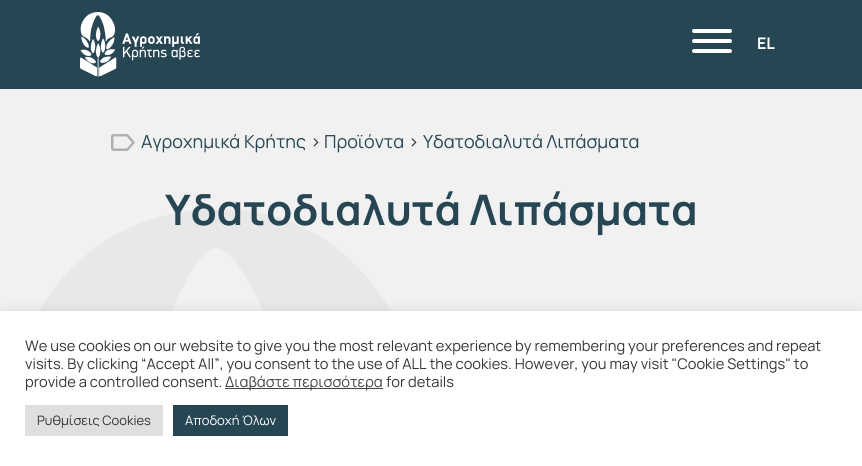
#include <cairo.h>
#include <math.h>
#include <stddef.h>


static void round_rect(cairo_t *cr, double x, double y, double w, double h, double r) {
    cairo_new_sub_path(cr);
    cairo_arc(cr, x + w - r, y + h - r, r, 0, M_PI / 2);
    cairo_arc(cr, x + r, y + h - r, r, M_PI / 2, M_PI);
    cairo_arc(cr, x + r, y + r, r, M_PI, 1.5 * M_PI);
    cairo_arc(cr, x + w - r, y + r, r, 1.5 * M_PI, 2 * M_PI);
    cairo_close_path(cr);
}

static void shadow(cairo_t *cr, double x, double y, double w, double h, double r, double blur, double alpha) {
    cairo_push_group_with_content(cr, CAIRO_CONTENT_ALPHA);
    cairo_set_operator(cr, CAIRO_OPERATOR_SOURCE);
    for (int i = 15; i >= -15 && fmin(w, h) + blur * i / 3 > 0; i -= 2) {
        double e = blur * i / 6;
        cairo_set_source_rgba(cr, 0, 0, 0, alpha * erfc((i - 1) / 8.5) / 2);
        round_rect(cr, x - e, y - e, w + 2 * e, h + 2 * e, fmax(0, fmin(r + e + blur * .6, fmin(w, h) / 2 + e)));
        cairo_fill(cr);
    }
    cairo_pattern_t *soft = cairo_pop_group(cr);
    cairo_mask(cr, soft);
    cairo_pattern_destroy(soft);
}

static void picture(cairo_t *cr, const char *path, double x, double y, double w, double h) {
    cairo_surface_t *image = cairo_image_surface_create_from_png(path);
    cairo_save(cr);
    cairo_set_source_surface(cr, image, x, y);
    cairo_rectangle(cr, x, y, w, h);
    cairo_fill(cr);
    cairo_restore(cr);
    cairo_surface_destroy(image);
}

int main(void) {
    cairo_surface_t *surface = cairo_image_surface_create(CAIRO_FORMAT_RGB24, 862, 466);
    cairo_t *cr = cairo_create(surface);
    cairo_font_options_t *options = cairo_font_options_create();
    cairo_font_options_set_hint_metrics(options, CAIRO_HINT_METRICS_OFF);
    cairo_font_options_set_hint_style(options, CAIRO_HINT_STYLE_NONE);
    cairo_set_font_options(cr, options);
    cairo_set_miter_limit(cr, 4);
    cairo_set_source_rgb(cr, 0.149, 0.275, 0.325);
    cairo_paint(cr);
    picture(cr, "img1.png", 80, 12, 120, 65);
    cairo_set_source_rgb(cr, 1, 1, 1);
    round_rect(cr, 692, 49, 40, 4, 2);
    cairo_fill(cr);
    round_rect(cr, 692, 29, 40, 4, 2);
    cairo_fill(cr);
    round_rect(cr, 692, 39, 40, 4, 2);
    cairo_fill(cr);
    cairo_select_font_face(cr, "Manrope", CAIRO_FONT_SLANT_NORMAL, CAIRO_FONT_WEIGHT_BOLD);
    cairo_set_font_size(cr, 16);
    cairo_move_to(cr, 757, 49);
    cairo_show_text(cr, "EL");
    cairo_set_source_rgb(cr, 0.945, 0.945, 0.945);
    cairo_rectangle(cr, 0, 89, 862, 222);
    cairo_fill(cr);
    picture(cr, "img2.png", 38, 209, 353, 102);
    picture(cr, "img3.png", 111, 134, 24, 17);
    cairo_select_font_face(cr, "Manrope", CAIRO_FONT_SLANT_NORMAL, CAIRO_FONT_WEIGHT_NORMAL);
    cairo_set_font_size(cr, 18);
    cairo_set_source_rgb(cr, 0.149, 0.275, 0.325);
    cairo_move_to(cr, 141, 148);
    cairo_show_text(cr, "Αγροχημικά Κρήτης");
    cairo_set_source_rgb(cr, 0.208, 0.208, 0.208);
    cairo_move_to(cr, 310, 148);
    cairo_show_text(cr, ">");
    cairo_set_source_rgb(cr, 0.149, 0.275, 0.325);
    cairo_move_to(cr, 324, 148);
    cairo_show_text(cr, "Προϊόντα");
    cairo_set_source_rgb(cr, 0.208, 0.208, 0.208);
    cairo_move_to(cr, 408, 148);
    cairo_show_text(cr, ">");
    cairo_set_source_rgb(cr, 0.149, 0.275, 0.325);
    cairo_move_to(cr, 423, 148);
    cairo_show_text(cr, "Υδατοδιαλυτά Λιπάσματα");
    cairo_select_font_face(cr, "Manrope", CAIRO_FONT_SLANT_NORMAL, CAIRO_FONT_WEIGHT_BOLD);
    cairo_set_font_size(cr, 42);
    cairo_move_to(cr, 165, 225);
    cairo_show_text(cr, "Υδατοδιαλυτά Λιπάσματα");
    cairo_set_source_rgb(cr, 0.675, 0.671, 0.671);
    shadow(cr, 0, 310, 862, 155, 0, 5, 0.3);
    cairo_set_source_rgb(cr, 1, 1, 1);
    cairo_rectangle(cr, 0, 311, 862, 155);
    cairo_fill(cr);
    cairo_select_font_face(cr, "Manrope", CAIRO_FONT_SLANT_NORMAL, CAIRO_FONT_WEIGHT_NORMAL);
    cairo_set_font_size(cr, 14.67);
    cairo_set_source_rgb(cr, 0.208, 0.208, 0.208);
    cairo_move_to(cr, 25, 351);
    cairo_show_text(cr, "We use cookies on our website to give you the most relevant experience by remembering your preferences and repeat");
    cairo_move_to(cr, 25, 369);
    cairo_show_text(cr, "visits. By clicking “Accept All”, you consent to the use of ALL the cookies. However, you may visit \"Cookie Settings\" to");
    cairo_move_to(cr, 25, 387);
    cairo_show_text(cr, "provide a controlled consent.");
    cairo_set_source_rgb(cr, 0.267, 0.267, 0.267);
    cairo_rectangle(cr, 225, 388, 158, 1);
    cairo_fill(cr);
    cairo_move_to(cr, 225, 387);
    cairo_show_text(cr, "Διαβάστε περισσότερα");
    cairo_set_source_rgb(cr, 0.208, 0.208, 0.208);
    cairo_move_to(cr, 386, 387);
    cairo_show_text(cr, "for details");
    cairo_set_source_rgb(cr, 0.871, 0.875, 0.878);
    cairo_rectangle(cr, 25, 405, 138, 31);
    cairo_fill(cr);
    cairo_set_font_size(cr, 13);
    cairo_set_source_rgb(cr, 0.208, 0.208, 0.208);
    cairo_move_to(cr, 37, 425);
    cairo_show_text(cr, "Ρυθμίσεις Cookies");
    cairo_set_source_rgb(cr, 0.149, 0.275, 0.325);
    cairo_rectangle(cr, 173, 405, 115, 31);
    cairo_fill(cr);
    cairo_set_source_rgb(cr, 1, 1, 1);
    cairo_move_to(cr, 185, 425);
    cairo_show_text(cr, "Αποδοχή Όλων");
    cairo_surface_write_to_png(surface, "page.png");
    cairo_font_options_destroy(options);
    cairo_destroy(cr);
    cairo_surface_destroy(surface);
    return 0;
}
